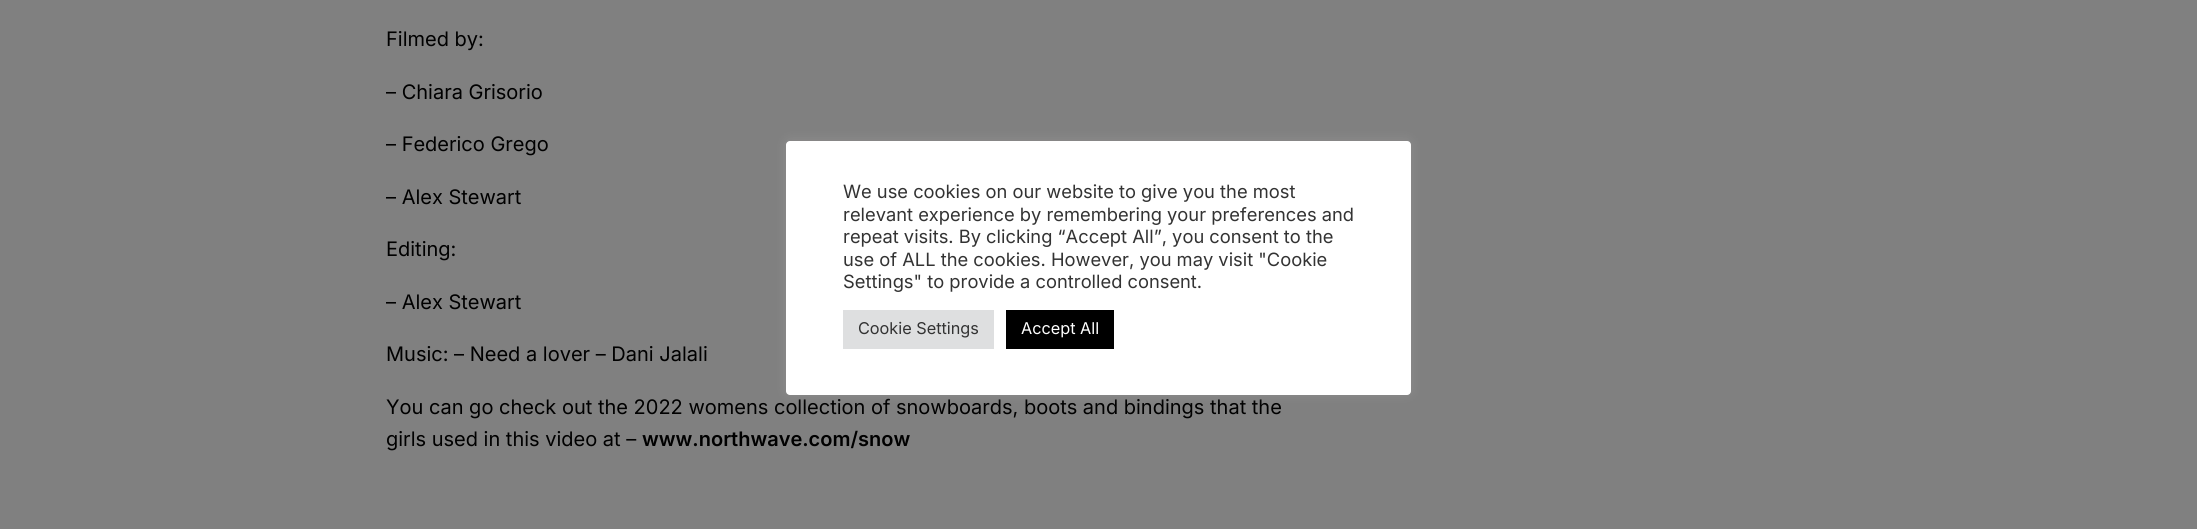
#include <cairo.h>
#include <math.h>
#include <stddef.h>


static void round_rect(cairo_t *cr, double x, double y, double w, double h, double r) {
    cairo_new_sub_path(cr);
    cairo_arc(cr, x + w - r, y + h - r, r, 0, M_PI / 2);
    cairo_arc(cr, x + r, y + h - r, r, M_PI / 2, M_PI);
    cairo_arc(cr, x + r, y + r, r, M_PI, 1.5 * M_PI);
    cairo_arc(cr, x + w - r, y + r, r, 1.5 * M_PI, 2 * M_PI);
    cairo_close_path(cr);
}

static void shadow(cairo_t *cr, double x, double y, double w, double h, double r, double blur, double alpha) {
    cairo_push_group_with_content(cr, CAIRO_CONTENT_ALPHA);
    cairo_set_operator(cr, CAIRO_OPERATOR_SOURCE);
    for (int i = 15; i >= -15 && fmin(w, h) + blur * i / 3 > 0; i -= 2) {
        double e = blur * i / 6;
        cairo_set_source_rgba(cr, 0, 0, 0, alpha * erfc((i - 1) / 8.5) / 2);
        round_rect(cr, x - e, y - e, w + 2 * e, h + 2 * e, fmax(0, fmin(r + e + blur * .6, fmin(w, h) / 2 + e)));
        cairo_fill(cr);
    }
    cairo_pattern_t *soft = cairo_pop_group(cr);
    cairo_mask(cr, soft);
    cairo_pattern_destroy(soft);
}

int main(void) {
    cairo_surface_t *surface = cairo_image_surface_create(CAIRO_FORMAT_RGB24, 2197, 529);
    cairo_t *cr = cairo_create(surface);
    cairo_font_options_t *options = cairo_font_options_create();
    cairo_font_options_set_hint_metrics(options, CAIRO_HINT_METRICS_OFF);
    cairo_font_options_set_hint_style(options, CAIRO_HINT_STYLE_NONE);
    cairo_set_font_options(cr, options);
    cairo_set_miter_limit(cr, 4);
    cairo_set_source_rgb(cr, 0.502, 0.502, 0.502);
    cairo_paint(cr);
    cairo_select_font_face(cr, "Inter", CAIRO_FONT_SLANT_NORMAL, CAIRO_FONT_WEIGHT_NORMAL);
    cairo_set_font_size(cr, 20);
    cairo_set_source_rgb(cr, 0, 0, 0);
    cairo_move_to(cr, 386, 46);
    cairo_show_text(cr, "Filmed by:");
    cairo_move_to(cr, 386, 99);
    cairo_show_text(cr, "– Chiara Grisorio");
    cairo_move_to(cr, 386, 151);
    cairo_show_text(cr, "– Federico Grego");
    cairo_move_to(cr, 386, 204);
    cairo_show_text(cr, "– Alex Stewart");
    cairo_move_to(cr, 386, 256);
    cairo_show_text(cr, "Editing:");
    cairo_move_to(cr, 386, 309);
    cairo_show_text(cr, "– Alex Stewart");
    cairo_move_to(cr, 386, 361);
    cairo_show_text(cr, "Music: – Need a lover – Dani Jalali");
    cairo_move_to(cr, 386, 414);
    cairo_show_text(cr, "You can go check out the 2022 womens collection of snowboards, boots and bindings that the");
    cairo_move_to(cr, 386, 446);
    cairo_show_text(cr, "girls used in this video at –");
    cairo_select_font_face(cr, "Inter SemiBold", CAIRO_FONT_SLANT_NORMAL, CAIRO_FONT_WEIGHT_NORMAL);
    cairo_move_to(cr, 642, 446);
    cairo_show_text(cr, "www.northwave.com/snow");
    cairo_set_source_rgb(cr, 0.675, 0.671, 0.671);
    shadow(cr, 786, 140, 625, 254, 4, 6, 0.3);
    cairo_set_source_rgb(cr, 1, 1, 1);
    round_rect(cr, 786, 141, 625, 254, 4);
    cairo_fill(cr);
    cairo_select_font_face(cr, "Inter", CAIRO_FONT_SLANT_NORMAL, CAIRO_FONT_WEIGHT_NORMAL);
    cairo_set_font_size(cr, 18.3);
    cairo_set_source_rgb(cr, 0.2, 0.2, 0.2);
    cairo_move_to(cr, 843, 198);
    cairo_show_text(cr, "We use cookies on our website to give you the most");
    cairo_move_to(cr, 843, 221);
    cairo_show_text(cr, "relevant experience by remembering your preferences and");
    cairo_move_to(cr, 843, 243);
    cairo_show_text(cr, "repeat visits. By clicking “Accept All”, you consent to the");
    cairo_move_to(cr, 843, 266);
    cairo_show_text(cr, "use of ALL the cookies. However, you may visit \"Cookie");
    cairo_move_to(cr, 843, 288);
    cairo_show_text(cr, "Settings\" to provide a controlled consent.");
    cairo_set_source_rgb(cr, 0.871, 0.875, 0.878);
    cairo_rectangle(cr, 843, 310, 151, 39);
    cairo_fill(cr);
    cairo_set_font_size(cr, 16.25);
    cairo_set_source_rgb(cr, 0.2, 0.2, 0.2);
    cairo_move_to(cr, 858, 334);
    cairo_show_text(cr, "Cookie Settings");
    cairo_set_source_rgb(cr, 0, 0, 0);
    cairo_rectangle(cr, 1006, 310, 108, 39);
    cairo_fill(cr);
    cairo_set_source_rgb(cr, 1, 1, 1);
    cairo_move_to(cr, 1021, 334);
    cairo_show_text(cr, "Accept All");
    cairo_surface_write_to_png(surface, "page.png");
    cairo_font_options_destroy(options);
    cairo_destroy(cr);
    cairo_surface_destroy(surface);
    return 0;
}
